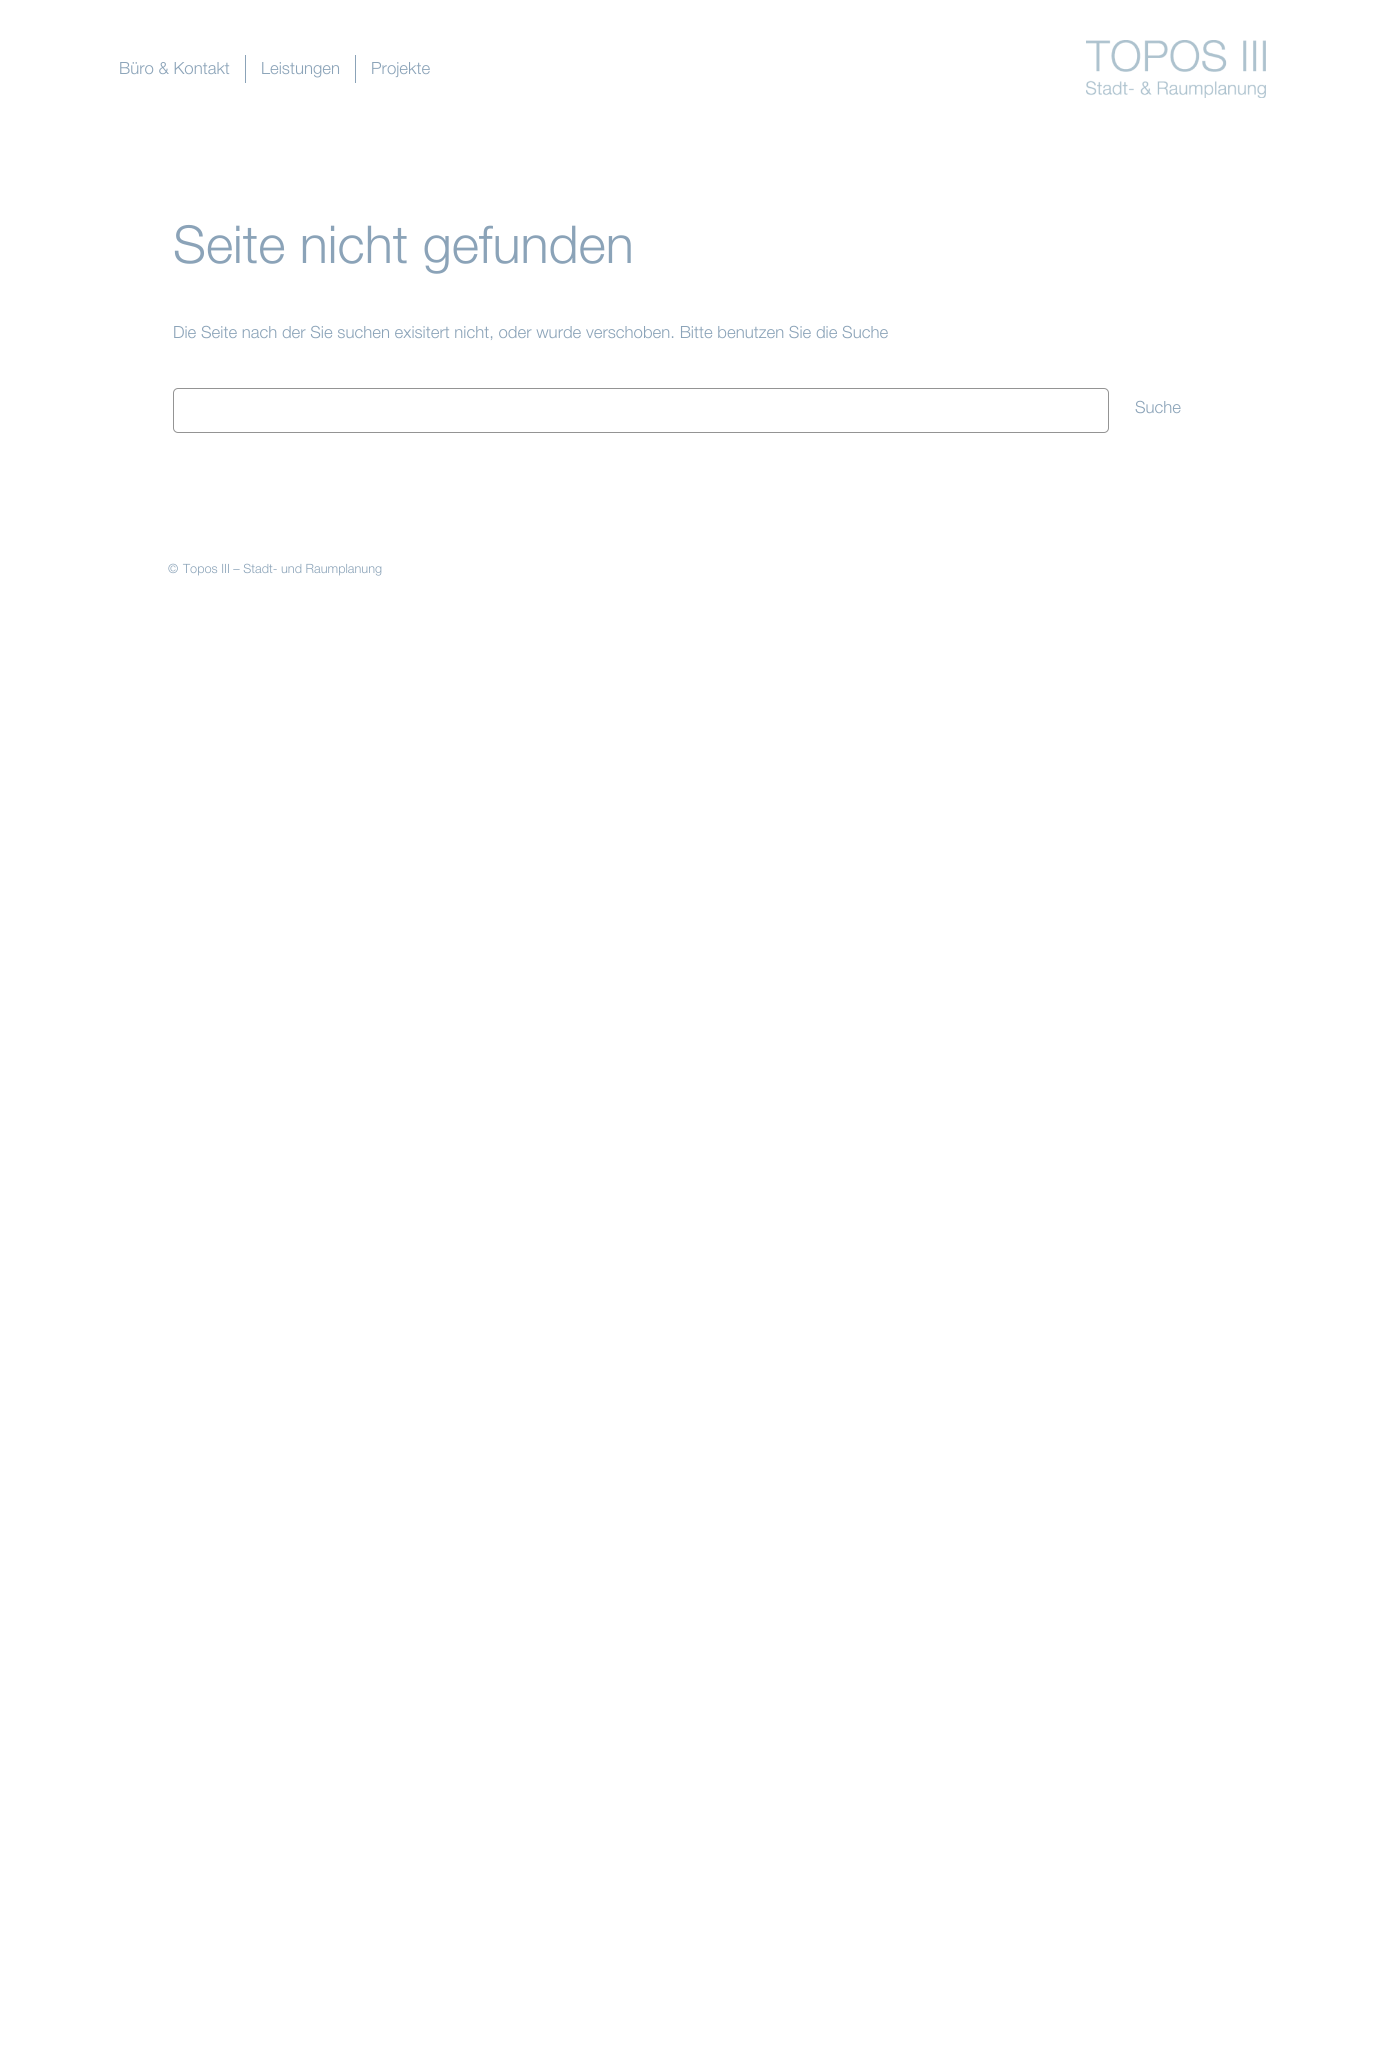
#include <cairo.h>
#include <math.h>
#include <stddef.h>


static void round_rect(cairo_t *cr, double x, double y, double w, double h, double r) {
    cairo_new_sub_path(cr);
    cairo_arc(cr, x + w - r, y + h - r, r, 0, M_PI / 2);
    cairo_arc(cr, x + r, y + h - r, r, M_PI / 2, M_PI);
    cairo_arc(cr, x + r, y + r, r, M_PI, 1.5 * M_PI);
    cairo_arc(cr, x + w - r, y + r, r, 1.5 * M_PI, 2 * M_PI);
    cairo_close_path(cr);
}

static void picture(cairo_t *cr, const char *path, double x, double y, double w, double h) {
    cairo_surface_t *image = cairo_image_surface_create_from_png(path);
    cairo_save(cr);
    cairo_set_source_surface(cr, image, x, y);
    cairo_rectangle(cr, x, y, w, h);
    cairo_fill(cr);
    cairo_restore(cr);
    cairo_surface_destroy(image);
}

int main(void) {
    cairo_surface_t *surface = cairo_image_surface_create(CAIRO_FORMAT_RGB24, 1385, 2053);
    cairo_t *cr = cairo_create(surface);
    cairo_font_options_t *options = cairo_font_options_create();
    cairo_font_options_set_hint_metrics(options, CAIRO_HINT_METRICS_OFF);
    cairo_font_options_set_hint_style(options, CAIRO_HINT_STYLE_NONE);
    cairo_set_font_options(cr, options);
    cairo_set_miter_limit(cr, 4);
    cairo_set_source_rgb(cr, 1, 1, 1);
    cairo_paint(cr);
    cairo_set_source_rgb(cr, 0.545, 0.639, 0.722);
    cairo_rectangle(cr, 245, 55, 1, 28);
    cairo_fill(cr);
    cairo_select_font_face(cr, "Helvetica Neue Light", CAIRO_FONT_SLANT_NORMAL, CAIRO_FONT_WEIGHT_NORMAL);
    cairo_set_font_size(cr, 16.8);
    cairo_move_to(cr, 119, 74);
    cairo_show_text(cr, "Büro & Kontakt");
    cairo_rectangle(cr, 355, 55, 1, 28);
    cairo_fill(cr);
    cairo_move_to(cr, 261, 74);
    cairo_show_text(cr, "Leistungen");
    cairo_move_to(cr, 371, 74);
    cairo_show_text(cr, "Projekte");
    picture(cr, "img1.png", 1086, 40, 180, 58);
    cairo_set_font_size(cr, 52.25);
    cairo_move_to(cr, 173, 263);
    cairo_show_text(cr, "Seite nicht gefunden");
    cairo_set_font_size(cr, 16.8);
    cairo_move_to(cr, 173, 338);
    cairo_show_text(cr, "Die Seite nach der Sie suchen exisitert nicht, oder wurde verschoben. Bitte benutzen Sie die Suche");
    round_rect(cr, 173.5, 388.5, 935, 44, 4.5);
    cairo_set_source_rgb(cr, 0.58, 0.58, 0.58);
    cairo_set_line_width(cr, 1);
    cairo_stroke(cr);
    cairo_set_source_rgb(cr, 0.545, 0.639, 0.722);
    cairo_move_to(cr, 1135, 413);
    cairo_show_text(cr, "Suche");
    cairo_set_font_size(cr, 12.75);
    cairo_move_to(cr, 168, 573);
    cairo_show_text(cr, "©");
    cairo_move_to(cr, 183, 573);
    cairo_show_text(cr, "Topos III – Stadt- und Raumplanung");
    cairo_surface_write_to_png(surface, "page.png");
    cairo_font_options_destroy(options);
    cairo_destroy(cr);
    cairo_surface_destroy(surface);
    return 0;
}
